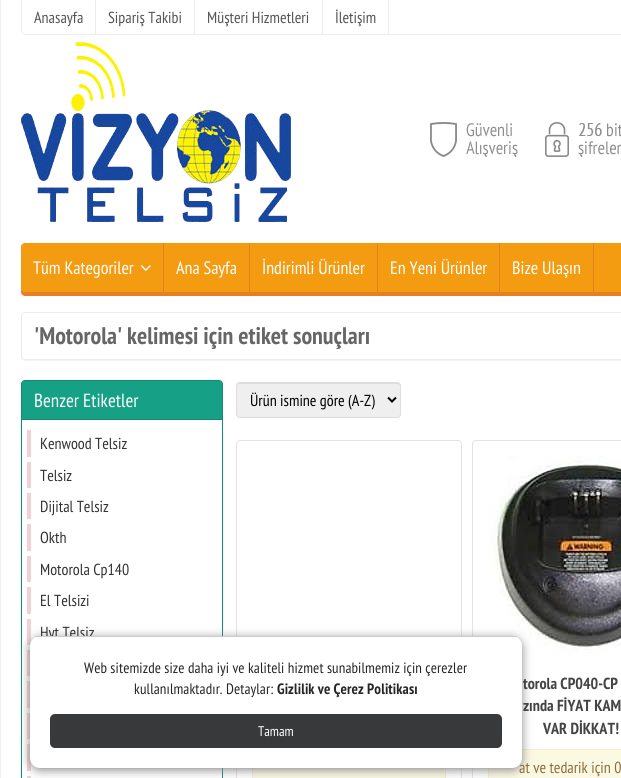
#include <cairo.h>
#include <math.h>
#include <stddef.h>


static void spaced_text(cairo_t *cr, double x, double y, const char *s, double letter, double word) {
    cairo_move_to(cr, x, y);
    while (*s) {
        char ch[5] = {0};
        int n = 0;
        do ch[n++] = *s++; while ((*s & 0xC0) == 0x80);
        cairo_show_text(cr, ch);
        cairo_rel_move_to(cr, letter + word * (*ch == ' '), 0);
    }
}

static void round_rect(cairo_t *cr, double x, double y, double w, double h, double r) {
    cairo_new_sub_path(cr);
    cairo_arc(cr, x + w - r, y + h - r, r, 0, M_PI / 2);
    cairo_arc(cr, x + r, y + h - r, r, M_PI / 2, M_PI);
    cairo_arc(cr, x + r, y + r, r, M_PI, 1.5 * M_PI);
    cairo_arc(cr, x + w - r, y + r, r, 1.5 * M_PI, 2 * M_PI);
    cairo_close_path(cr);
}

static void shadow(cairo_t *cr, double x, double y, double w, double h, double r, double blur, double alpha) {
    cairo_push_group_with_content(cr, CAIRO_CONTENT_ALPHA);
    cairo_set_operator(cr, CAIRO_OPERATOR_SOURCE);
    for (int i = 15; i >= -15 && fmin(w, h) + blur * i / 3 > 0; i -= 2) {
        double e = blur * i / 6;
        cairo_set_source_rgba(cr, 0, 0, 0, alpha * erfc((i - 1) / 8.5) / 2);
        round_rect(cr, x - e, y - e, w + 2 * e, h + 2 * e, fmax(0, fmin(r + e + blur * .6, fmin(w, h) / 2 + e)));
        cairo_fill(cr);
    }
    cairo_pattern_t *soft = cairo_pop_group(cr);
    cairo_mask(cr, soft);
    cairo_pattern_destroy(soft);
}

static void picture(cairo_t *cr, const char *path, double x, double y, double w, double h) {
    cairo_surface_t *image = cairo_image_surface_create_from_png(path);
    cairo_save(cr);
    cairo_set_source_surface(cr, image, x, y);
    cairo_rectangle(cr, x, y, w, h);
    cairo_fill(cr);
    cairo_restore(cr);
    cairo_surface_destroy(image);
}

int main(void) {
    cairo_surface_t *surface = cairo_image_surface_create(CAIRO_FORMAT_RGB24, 621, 778);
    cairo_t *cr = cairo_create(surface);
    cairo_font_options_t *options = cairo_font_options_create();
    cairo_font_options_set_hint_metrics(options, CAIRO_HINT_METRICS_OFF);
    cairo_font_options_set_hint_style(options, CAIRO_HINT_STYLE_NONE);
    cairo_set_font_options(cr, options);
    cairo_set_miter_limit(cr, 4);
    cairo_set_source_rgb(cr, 1, 1, 1);
    cairo_paint(cr);
    cairo_set_source_rgb(cr, 0.941, 0.941, 0.941);
    cairo_rectangle(cr, 0, 0, 1, 778);
    cairo_fill(cr);
    cairo_set_source_rgb(cr, 0.922, 0.922, 0.922);
    cairo_set_fill_rule(cr, CAIRO_FILL_RULE_EVEN_ODD);
    cairo_new_path(cr);
    cairo_move_to(cr, 21, 0);
    cairo_line_to(cr, 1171, 0);
    cairo_line_to(cr, 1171, 31);
    cairo_curve_to(cr, 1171, 33, 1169, 35, 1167, 35);
    cairo_line_to(cr, 25, 35);
    cairo_curve_to(cr, 23, 35, 21, 33, 21, 31);
    cairo_close_path(cr);
    cairo_move_to(cr, 22, 0);
    cairo_line_to(cr, 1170, 0);
    cairo_line_to(cr, 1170, 31);
    cairo_curve_to(cr, 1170, 33, 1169, 34, 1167, 34);
    cairo_line_to(cr, 25, 34);
    cairo_curve_to(cr, 23, 34, 22, 33, 22, 31);
    cairo_close_path(cr);
    cairo_fill(cr);
    cairo_rectangle(cr, 95, 0, 1, 34);
    cairo_fill(cr);
    cairo_select_font_face(cr, "PT Sans Narrow", CAIRO_FONT_SLANT_NORMAL, CAIRO_FONT_WEIGHT_NORMAL);
    cairo_set_font_size(cr, 16);
    cairo_set_source_rgb(cr, 0.333, 0.333, 0.333);
    cairo_move_to(cr, 34, 23);
    cairo_show_text(cr, "Anasayfa");
    cairo_set_source_rgb(cr, 0.922, 0.922, 0.922);
    cairo_rectangle(cr, 194, 0, 1, 34);
    cairo_fill(cr);
    cairo_set_source_rgb(cr, 0.333, 0.333, 0.333);
    cairo_move_to(cr, 108, 23);
    cairo_show_text(cr, "Sipariş Takibi");
    cairo_set_source_rgb(cr, 0.922, 0.922, 0.922);
    cairo_rectangle(cr, 322, 0, 1, 34);
    cairo_fill(cr);
    cairo_set_source_rgb(cr, 0.333, 0.333, 0.333);
    cairo_move_to(cr, 207, 23);
    cairo_show_text(cr, "Müşteri Hizmetleri");
    cairo_set_source_rgb(cr, 0.922, 0.922, 0.922);
    cairo_rectangle(cr, 388, 0, 1, 34);
    cairo_fill(cr);
    cairo_set_source_rgb(cr, 0.333, 0.333, 0.333);
    cairo_move_to(cr, 335, 23);
    cairo_show_text(cr, "İletişim");
    picture(cr, "img1.png", 21, 42, 270, 180);
    picture(cr, "img2.png", 430, 122, 191, 35);
    cairo_set_source_rgb(cr, 0.953, 0.612, 0.071);
    round_rect(cr, 21, 243, 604, 49, 4);
    cairo_fill(cr);
    cairo_set_source_rgb(cr, 0.902, 0.494, 0.133);
    cairo_set_fill_rule(cr, CAIRO_FILL_RULE_WINDING);
    cairo_new_path(cr);
    cairo_move_to(cr, 21, 288);
    cairo_line_to(cr, 21, 292);
    cairo_curve_to(cr, 21, 294, 23, 296, 25, 296);
    cairo_line_to(cr, 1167, 296);
    cairo_curve_to(cr, 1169, 296, 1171, 294, 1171, 292);
    cairo_line_to(cr, 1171, 288);
    cairo_curve_to(cr, 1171, 290, 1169, 292, 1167, 292);
    cairo_line_to(cr, 25, 292);
    cairo_curve_to(cr, 23, 292, 21, 290, 21, 288);
    cairo_close_path(cr);
    cairo_fill(cr);
    cairo_rectangle(cr, 163, 243, 1, 49);
    cairo_fill(cr);
    cairo_set_font_size(cr, 18);
    cairo_set_source_rgb(cr, 1, 1, 1);
    cairo_move_to(cr, 33, 274);
    cairo_show_text(cr, "Tüm Kategoriler");
    picture(cr, "img3.png", 140, 265, 11, 6);
    cairo_set_source_rgb(cr, 0.902, 0.494, 0.133);
    cairo_rectangle(cr, 249, 243, 1, 49);
    cairo_fill(cr);
    cairo_set_source_rgb(cr, 1, 1, 1);
    cairo_move_to(cr, 176, 274);
    cairo_show_text(cr, "Ana Sayfa");
    cairo_set_source_rgb(cr, 0.902, 0.494, 0.133);
    cairo_rectangle(cr, 377, 243, 1, 49);
    cairo_fill(cr);
    cairo_set_source_rgb(cr, 1, 1, 1);
    cairo_move_to(cr, 262, 274);
    cairo_show_text(cr, "İndirimli Ürünler");
    cairo_set_source_rgb(cr, 0.902, 0.494, 0.133);
    cairo_rectangle(cr, 499, 243, 1, 49);
    cairo_fill(cr);
    cairo_set_source_rgb(cr, 1, 1, 1);
    cairo_move_to(cr, 390, 274);
    cairo_show_text(cr, "En Yeni Ürünler");
    cairo_set_source_rgb(cr, 0.902, 0.494, 0.133);
    cairo_rectangle(cr, 593, 243, 1, 49);
    cairo_fill(cr);
    cairo_set_source_rgb(cr, 1, 1, 1);
    cairo_move_to(cr, 512, 274);
    cairo_show_text(cr, "Bize Ulaşın");
    round_rect(cr, 21.5, 380.5, 201, 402, 3.5);
    cairo_set_source_rgb(cr, 0.067, 0.549, 0.455);
    cairo_set_line_width(cr, 1);
    cairo_stroke(cr);
    cairo_set_source_rgb(cr, 0.945, 0.82, 0.82);
    cairo_rectangle(cr, 27, 619, 4, 26);
    cairo_fill(cr);
    cairo_rectangle(cr, 27, 650, 3, 26);
    cairo_fill(cr);
    cairo_rectangle(cr, 27, 681, 3, 27);
    cairo_fill(cr);
    cairo_rectangle(cr, 27, 713, 3, 26);
    cairo_fill(cr);
    cairo_rectangle(cr, 27, 744, 4, 27);
    cairo_fill(cr);
    cairo_rectangle(cr, 27, 776, 4, 2);
    cairo_fill(cr);
    round_rect(cr, 236.5, 440.5, 225, 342, 3.5);
    cairo_set_source_rgb(cr, 0.89, 0.89, 0.89);
    cairo_stroke(cr);
    cairo_set_source_rgb(cr, 0.988, 0.973, 0.89);
    cairo_rectangle(cr, 253, 768, 192, 10);
    cairo_fill(cr);
    cairo_rectangle(cr, 252.5, 727.5, 193, 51);
    cairo_set_source_rgb(cr, 0.98, 0.922, 0.8);
    cairo_stroke(cr);
    round_rect(cr, 472.5, 440.5, 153, 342, 3.5);
    cairo_set_source_rgb(cr, 0.89, 0.89, 0.89);
    cairo_stroke(cr);
    picture(cr, "img4.png", 488, 456, 133, 200);
    cairo_set_source_rgb(cr, 0.988, 0.973, 0.89);
    cairo_rectangle(cr, 488.5, 749.5, 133, 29);
    cairo_fill_preserve(cr);
    cairo_set_source_rgb(cr, 0.98, 0.922, 0.8);
    cairo_stroke(cr);
    cairo_set_source_rgb(cr, 0.533, 0.533, 0.533);
    shadow(cr, 30, 638, 492, 132, 10, 5, 1);
    cairo_set_font_size(cr, 16);
    cairo_set_source_rgb(cr, 0.2, 0.2, 0.2);
    cairo_move_to(cr, 40, 638);
    cairo_show_text(cr, "Hyt Telsiz");
    cairo_set_source_rgb(cr, 0.541, 0.427, 0.231);
    cairo_move_to(cr, 519, 773);
    cairo_show_text(cr, "at ve tedarik için 0");
    cairo_set_source_rgb(cr, 1, 1, 1);
    round_rect(cr, 30, 636, 492, 132, 10);
    cairo_fill(cr);
    cairo_set_source_rgb(cr, 0.8, 0.8, 0.8);
    cairo_rectangle(cr, 35, 636, 482, 1);
    cairo_fill(cr);
    cairo_set_font_size(cr, 15);
    cairo_set_source_rgb(cr, 0.149, 0.149, 0.149);
    spaced_text(cr, 84, 673, "Web sitemizde size daha iyi ve kaliteli hizmet sunabilmemiz için çerezler", 0.1, 0);
    spaced_text(cr, 134, 694, "kullanılmaktadır. Detaylar:", 0.1, 0);
    cairo_select_font_face(cr, "PT Sans Narrow", CAIRO_FONT_SLANT_NORMAL, CAIRO_FONT_WEIGHT_BOLD);
    spaced_text(cr, 277, 694, "Gizlilik ve Çerez Politikası", 0.1, 0);
    cairo_set_source_rgb(cr, 0.216, 0.224, 0.231);
    round_rect(cr, 50, 714, 452, 34, 5);
    cairo_fill(cr);
    cairo_select_font_face(cr, "PT Sans Narrow", CAIRO_FONT_SLANT_NORMAL, CAIRO_FONT_WEIGHT_NORMAL);
    cairo_set_font_size(cr, 14);
    cairo_set_source_rgb(cr, 1, 1, 1);
    cairo_move_to(cr, 258, 736);
    cairo_show_text(cr, "Tamam");
    cairo_save(cr);
    cairo_set_fill_rule(cr, CAIRO_FILL_RULE_EVEN_ODD);
    cairo_new_path(cr);
    cairo_move_to(cr, 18, 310);
    cairo_line_to(cr, 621, 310);
    cairo_line_to(cr, 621, 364);
    cairo_line_to(cr, 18, 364);
    cairo_close_path(cr);
    cairo_move_to(cr, 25, 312);
    cairo_line_to(cr, 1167, 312);
    cairo_curve_to(cr, 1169, 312, 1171, 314, 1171, 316);
    cairo_line_to(cr, 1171, 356);
    cairo_curve_to(cr, 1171, 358, 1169, 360, 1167, 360);
    cairo_line_to(cr, 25, 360);
    cairo_curve_to(cr, 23, 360, 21, 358, 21, 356);
    cairo_line_to(cr, 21, 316);
    cairo_curve_to(cr, 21, 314, 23, 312, 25, 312);
    cairo_close_path(cr);
    cairo_clip(cr);
    cairo_set_source_rgb(cr, 0, 0, 0);
    shadow(cr, 21, 313, 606, 48, 4, 0.5, 0.05);
    cairo_restore(cr);
    round_rect(cr, 21.5, 312.5, 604, 47, 3.5);
    cairo_set_source_rgb(cr, 0.925, 0.925, 0.925);
    cairo_stroke(cr);
    cairo_select_font_face(cr, "PT Sans Narrow", CAIRO_FONT_SLANT_NORMAL, CAIRO_FONT_WEIGHT_BOLD);
    cairo_set_font_size(cr, 24);
    cairo_set_source_rgb(cr, 0.4, 0.4, 0.4);
    cairo_move_to(cr, 34, 344);
    cairo_show_text(cr, "'Motorola' kelimesi için etiket sonuçları");
    cairo_set_source_rgb(cr, 0.086, 0.627, 0.522);
    cairo_rectangle(cr, 22, 381, 200, 38);
    cairo_fill(cr);
    cairo_set_source_rgb(cr, 0.067, 0.549, 0.455);
    cairo_rectangle(cr, 22, 419, 200, 1);
    cairo_fill(cr);
    cairo_select_font_face(cr, "PT Sans Narrow", CAIRO_FONT_SLANT_NORMAL, CAIRO_FONT_WEIGHT_NORMAL);
    cairo_set_font_size(cr, 19);
    cairo_set_source_rgb(cr, 1, 1, 1);
    cairo_move_to(cr, 34, 407);
    cairo_show_text(cr, "Benzer Etiketler");
    cairo_set_source_rgb(cr, 0.945, 0.82, 0.82);
    cairo_rectangle(cr, 27, 430, 4, 27);
    cairo_fill(cr);
    cairo_set_font_size(cr, 16);
    cairo_set_source_rgb(cr, 0.2, 0.2, 0.2);
    cairo_move_to(cr, 40, 449);
    cairo_show_text(cr, "Kenwood Telsiz");
    cairo_set_source_rgb(cr, 0.945, 0.82, 0.82);
    cairo_rectangle(cr, 27, 462, 4, 26);
    cairo_fill(cr);
    cairo_set_source_rgb(cr, 0.2, 0.2, 0.2);
    cairo_move_to(cr, 40, 481);
    cairo_show_text(cr, "Telsiz");
    cairo_set_source_rgb(cr, 0.945, 0.82, 0.82);
    cairo_rectangle(cr, 27, 493, 4, 26);
    cairo_fill(cr);
    cairo_set_source_rgb(cr, 0.2, 0.2, 0.2);
    cairo_move_to(cr, 40, 512);
    cairo_show_text(cr, "Dijital Telsiz");
    cairo_set_source_rgb(cr, 0.945, 0.82, 0.82);
    cairo_rectangle(cr, 27, 524, 4, 27);
    cairo_fill(cr);
    cairo_set_source_rgb(cr, 0.2, 0.2, 0.2);
    cairo_move_to(cr, 40, 543);
    cairo_show_text(cr, "Okth");
    cairo_set_source_rgb(cr, 0.945, 0.82, 0.82);
    cairo_rectangle(cr, 27, 556, 4, 26);
    cairo_fill(cr);
    cairo_set_source_rgb(cr, 0.2, 0.2, 0.2);
    cairo_move_to(cr, 40, 575);
    cairo_show_text(cr, "Motorola Cp140");
    cairo_set_source_rgb(cr, 0.945, 0.82, 0.82);
    cairo_rectangle(cr, 27, 587, 4, 27);
    cairo_fill(cr);
    cairo_set_source_rgb(cr, 0.2, 0.2, 0.2);
    cairo_move_to(cr, 40, 606);
    cairo_show_text(cr, "El Telsizi");
    cairo_set_source_rgb(cr, 0.937, 0.937, 0.937);
    round_rect(cr, 236, 382, 165, 36, 4);
    cairo_fill(cr);
    cairo_set_source_rgb(cr, 0.867, 0.867, 0.867);
    cairo_new_path(cr);
    cairo_move_to(cr, 240, 384);
    cairo_line_to(cr, 397, 384);
    cairo_curve_to(cr, 399, 384, 400, 385, 400, 387);
    cairo_curve_to(cr, 400, 385, 399, 383, 397, 383);
    cairo_line_to(cr, 240, 383);
    cairo_curve_to(cr, 238, 383, 237, 385, 237, 387);
    cairo_curve_to(cr, 237, 385, 238, 384, 240, 384);
    cairo_close_path(cr);
    cairo_fill(cr);
    round_rect(cr, 236.5, 382.5, 164, 35, 3.5);
    cairo_stroke(cr);
    cairo_new_path(cr);
    cairo_move_to(cr, 388, 397.5);
    cairo_line_to(cr, 392, 401.5);
    cairo_line_to(cr, 396, 397.5);
    cairo_set_source_rgb(cr, 0, 0, 0);
    cairo_set_line_width(cr, 2);
    cairo_stroke(cr);
    cairo_move_to(cr, 250, 406);
    cairo_show_text(cr, "Ürün ismine göre (A-Z)");
    cairo_select_font_face(cr, "PT Sans Narrow", CAIRO_FONT_SLANT_NORMAL, CAIRO_FONT_WEIGHT_BOLD);
    cairo_set_source_rgb(cr, 0.267, 0.267, 0.267);
    cairo_move_to(cr, 523, 689);
    cairo_show_text(cr, "torola CP040-CP");
    cairo_move_to(cr, 523, 711);
    cairo_show_text(cr, "zında FİYAT KAM");
    cairo_move_to(cr, 543, 734);
    cairo_show_text(cr, "VAR DİKKAT!");
    cairo_surface_write_to_png(surface, "page.png");
    cairo_font_options_destroy(options);
    cairo_destroy(cr);
    cairo_surface_destroy(surface);
    return 0;
}
